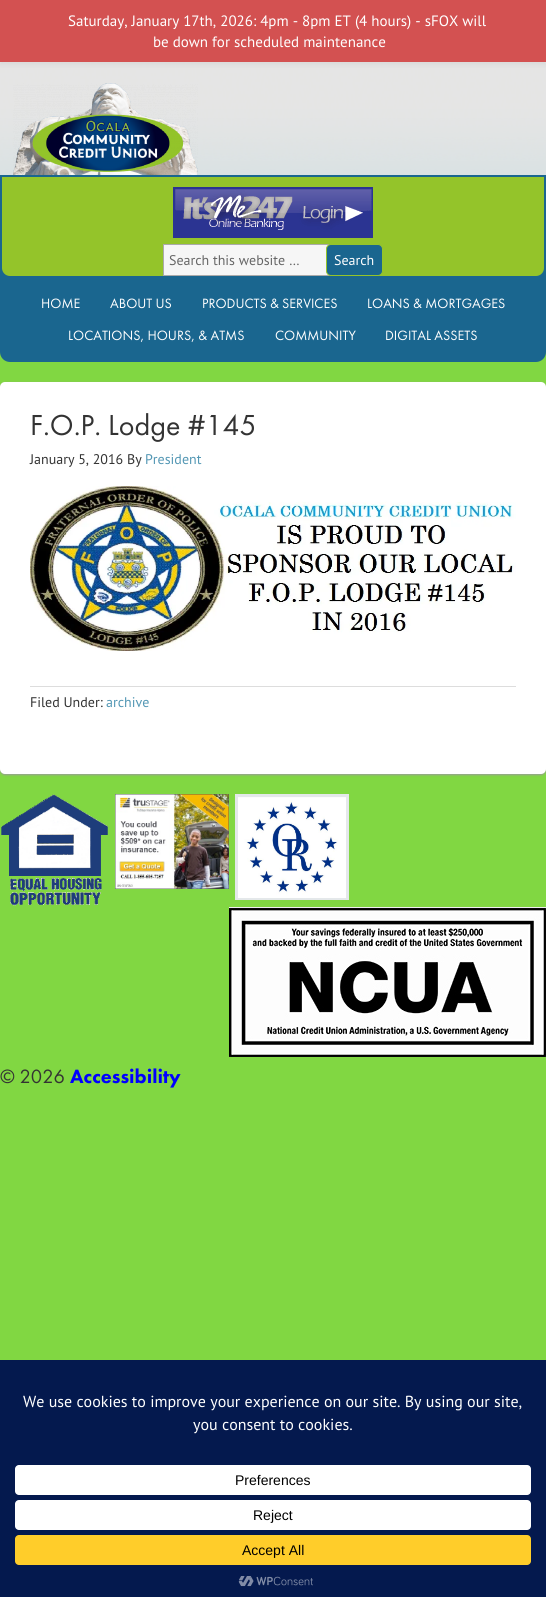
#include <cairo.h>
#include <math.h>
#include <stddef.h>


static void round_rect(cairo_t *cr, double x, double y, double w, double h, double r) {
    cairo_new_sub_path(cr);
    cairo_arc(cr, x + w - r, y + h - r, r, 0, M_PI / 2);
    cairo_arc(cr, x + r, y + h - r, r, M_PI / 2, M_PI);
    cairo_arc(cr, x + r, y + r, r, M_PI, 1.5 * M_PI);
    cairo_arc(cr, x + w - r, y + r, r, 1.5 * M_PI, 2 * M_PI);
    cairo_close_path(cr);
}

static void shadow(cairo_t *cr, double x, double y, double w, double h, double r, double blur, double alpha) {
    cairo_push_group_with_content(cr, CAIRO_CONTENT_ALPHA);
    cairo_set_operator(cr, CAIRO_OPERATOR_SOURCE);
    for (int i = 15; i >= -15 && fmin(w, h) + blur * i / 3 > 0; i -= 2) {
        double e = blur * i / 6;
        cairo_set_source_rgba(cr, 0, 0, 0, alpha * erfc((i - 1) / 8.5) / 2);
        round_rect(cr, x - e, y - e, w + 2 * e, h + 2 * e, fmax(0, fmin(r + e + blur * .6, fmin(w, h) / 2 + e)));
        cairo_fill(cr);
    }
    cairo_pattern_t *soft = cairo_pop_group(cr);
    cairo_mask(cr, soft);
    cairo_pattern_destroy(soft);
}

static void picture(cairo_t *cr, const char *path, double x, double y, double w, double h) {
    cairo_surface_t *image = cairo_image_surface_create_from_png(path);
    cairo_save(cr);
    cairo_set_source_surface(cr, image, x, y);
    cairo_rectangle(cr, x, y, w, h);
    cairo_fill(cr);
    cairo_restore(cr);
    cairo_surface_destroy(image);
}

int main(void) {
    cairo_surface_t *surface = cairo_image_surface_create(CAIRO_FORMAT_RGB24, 546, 1597);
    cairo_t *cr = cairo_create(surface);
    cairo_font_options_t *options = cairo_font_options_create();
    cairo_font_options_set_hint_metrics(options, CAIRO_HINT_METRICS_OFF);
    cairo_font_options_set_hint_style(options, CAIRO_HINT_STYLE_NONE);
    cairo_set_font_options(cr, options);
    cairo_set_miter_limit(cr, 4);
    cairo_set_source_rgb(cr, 0.506, 0.843, 0.259);
    cairo_paint(cr);
    picture(cr, "img1.png", 0, 62, 546, 113);
    cairo_set_source_rgb(cr, 0, 0, 0);
    shadow(cr, 0, 3, 546, 62, 0, 2, 0.05);
    cairo_set_source_rgb(cr, 0.827, 0.318, 0.318);
    cairo_rectangle(cr, 0, 0, 546, 62);
    cairo_fill(cr);
    cairo_select_font_face(cr, "PT Sans", CAIRO_FONT_SLANT_NORMAL, CAIRO_FONT_WEIGHT_NORMAL);
    cairo_set_font_size(cr, 15);
    cairo_set_source_rgb(cr, 1, 1, 1);
    cairo_move_to(cr, 68, 26);
    cairo_show_text(cr, "Saturday, January 17th, 2026: 4pm - 8pm ET (4 hours) - sFOX will");
    cairo_move_to(cr, 153, 47);
    cairo_show_text(cr, "be down for scheduled maintenance");
    picture(cr, "img2.png", 13, 83, 185, 92);
    cairo_set_source_rgb(cr, 0.102, 0.4, 0.561);
    round_rect(cr, 0, 197, 546, 165, 10);
    cairo_fill(cr);
    cairo_set_source_rgb(cr, 0.58, 0.769, 0.165);
    cairo_new_path(cr);
    cairo_move_to(cr, 1, 176);
    cairo_line_to(cr, 545, 176);
    cairo_line_to(cr, 545, 268);
    cairo_curve_to(cr, 545, 273, 541, 277, 536, 277);
    cairo_line_to(cr, 10, 277);
    cairo_curve_to(cr, 5, 277, 1, 273, 1, 268);
    cairo_close_path(cr);
    cairo_fill_preserve(cr);
    cairo_set_source_rgb(cr, 0.102, 0.4, 0.561);
    cairo_stroke(cr);
    picture(cr, "img3.png", 173, 187, 200, 51);
    cairo_set_source_rgb(cr, 0.961, 0.961, 0.961);
    cairo_rectangle(cr, 164, 245, 164, 30);
    cairo_fill(cr);
    cairo_rectangle(cr, 163.5, 244.5, 169, 31);
    cairo_set_source_rgb(cr, 0.667, 0.667, 0.667);
    cairo_set_line_width(cr, 1);
    cairo_stroke(cr);
    cairo_set_font_size(cr, 14);
    cairo_set_source_rgb(cr, 0.4, 0.4, 0.4);
    cairo_move_to(cr, 169, 265);
    cairo_show_text(cr, "Search this website …");
    cairo_set_source_rgb(cr, 0.102, 0.4, 0.561);
    round_rect(cr, 326.5, 244.5, 56, 31, 4.5);
    cairo_fill_preserve(cr);
    cairo_set_source_rgb(cr, 0.58, 0.769, 0.165);
    cairo_stroke(cr);
    cairo_set_source_rgb(cr, 1, 1, 1);
    cairo_move_to(cr, 334, 265);
    cairo_show_text(cr, "Search");
    cairo_select_font_face(cr, "Futura PT", CAIRO_FONT_SLANT_NORMAL, CAIRO_FONT_WEIGHT_NORMAL);
    cairo_move_to(cr, 41, 308);
    cairo_show_text(cr, "HOME");
    cairo_move_to(cr, 110, 308);
    cairo_show_text(cr, "ABOUT US");
    cairo_move_to(cr, 202, 308);
    cairo_show_text(cr, "PRODUCTS & SERVICES");
    cairo_move_to(cr, 367, 308);
    cairo_show_text(cr, "LOANS & MORTGAGES");
    cairo_move_to(cr, 68, 340);
    cairo_show_text(cr, "LOCATIONS, HOURS, & ATMS");
    cairo_move_to(cr, 275, 340);
    cairo_show_text(cr, "COMMUNITY");
    cairo_move_to(cr, 385, 340);
    cairo_show_text(cr, "DIGITAL ASSETS");
    cairo_set_source_rgb(cr, 0.6, 0.6, 0.6);
    shadow(cr, 0, 383, 546, 392, 5, 1, 1);
    cairo_set_source_rgb(cr, 1, 1, 1);
    round_rect(cr, 0, 382, 546, 392, 5);
    cairo_fill(cr);
    cairo_set_font_size(cr, 30);
    cairo_set_source_rgb(cr, 0.2, 0.2, 0.2);
    cairo_move_to(cr, 30, 435);
    cairo_show_text(cr, "F.O.P. Lodge #145");
    cairo_select_font_face(cr, "PT Sans", CAIRO_FONT_SLANT_NORMAL, CAIRO_FONT_WEIGHT_NORMAL);
    cairo_set_font_size(cr, 14);
    cairo_move_to(cr, 30, 464);
    cairo_show_text(cr, "January 5, 2016 By");
    cairo_set_source_rgb(cr, 0.325, 0.592, 0.706);
    cairo_move_to(cr, 145, 464);
    cairo_show_text(cr, "President");
    picture(cr, "img4.png", 30, 486, 486, 165);
    cairo_set_source_rgb(cr, 0.867, 0.867, 0.867);
    cairo_rectangle(cr, 30, 686, 486, 1);
    cairo_fill(cr);
    cairo_set_source_rgb(cr, 0.2, 0.2, 0.2);
    cairo_move_to(cr, 30, 707);
    cairo_show_text(cr, "Filed Under:");
    cairo_set_source_rgb(cr, 0.325, 0.592, 0.706);
    cairo_move_to(cr, 106, 707);
    cairo_show_text(cr, "archive");
    picture(cr, "img5.png", 1, 794, 107, 112);
    picture(cr, "img6.png", 115, 794, 114, 95);
    picture(cr, "img7.png", 235, 794, 114, 106);
    picture(cr, "img8.png", 229, 907, 317, 150);
    cairo_select_font_face(cr, "Futura PT", CAIRO_FONT_SLANT_NORMAL, CAIRO_FONT_WEIGHT_NORMAL);
    cairo_set_font_size(cr, 20);
    cairo_set_source_rgb(cr, 0.2, 0.2, 0.2);
    cairo_move_to(cr, 0, 1083);
    cairo_show_text(cr, "© 2026");
    cairo_select_font_face(cr, "Futura PT Black", CAIRO_FONT_SLANT_NORMAL, CAIRO_FONT_WEIGHT_NORMAL);
    cairo_set_source_rgb(cr, 0, 0, 1);
    cairo_move_to(cr, 70, 1083);
    cairo_show_text(cr, "Accessibility");
    cairo_set_source_rgb(cr, 0.016, 0.098, 0.306);
    cairo_rectangle(cr, 0, 1360, 546, 237);
    cairo_fill(cr);
    cairo_select_font_face(cr, "PT Sans", CAIRO_FONT_SLANT_NORMAL, CAIRO_FONT_WEIGHT_NORMAL);
    cairo_set_font_size(cr, 16);
    cairo_set_source_rgb(cr, 1, 1, 1);
    cairo_move_to(cr, 23, 1407);
    cairo_show_text(cr, "We use cookies to improve your experience on our site. By using our site,");
    cairo_move_to(cr, 193, 1430);
    cairo_show_text(cr, "you consent to cookies.");
    round_rect(cr, 15, 1465, 516, 30, 4);
    cairo_fill(cr);
    cairo_select_font_face(cr, "Liberation Sans", CAIRO_FONT_SLANT_NORMAL, CAIRO_FONT_WEIGHT_NORMAL);
    cairo_set_font_size(cr, 14);
    cairo_set_source_rgb(cr, 0, 0, 0);
    cairo_move_to(cr, 235, 1485);
    cairo_show_text(cr, "Preferences");
    cairo_set_source_rgb(cr, 1, 1, 1);
    round_rect(cr, 15, 1500, 516, 30, 4);
    cairo_fill(cr);
    cairo_set_source_rgb(cr, 0, 0, 0);
    cairo_move_to(cr, 253, 1520);
    cairo_show_text(cr, "Reject");
    cairo_set_source_rgb(cr, 1, 0.804, 0.165);
    round_rect(cr, 15, 1535, 516, 30, 4);
    cairo_fill(cr);
    cairo_set_source_rgb(cr, 0, 0, 0);
    cairo_move_to(cr, 242, 1555);
    cairo_show_text(cr, "Accept All");
    picture(cr, "img9.png", 238, 1576, 75, 11);
    cairo_surface_write_to_png(surface, "page.png");
    cairo_font_options_destroy(options);
    cairo_destroy(cr);
    cairo_surface_destroy(surface);
    return 0;
}
